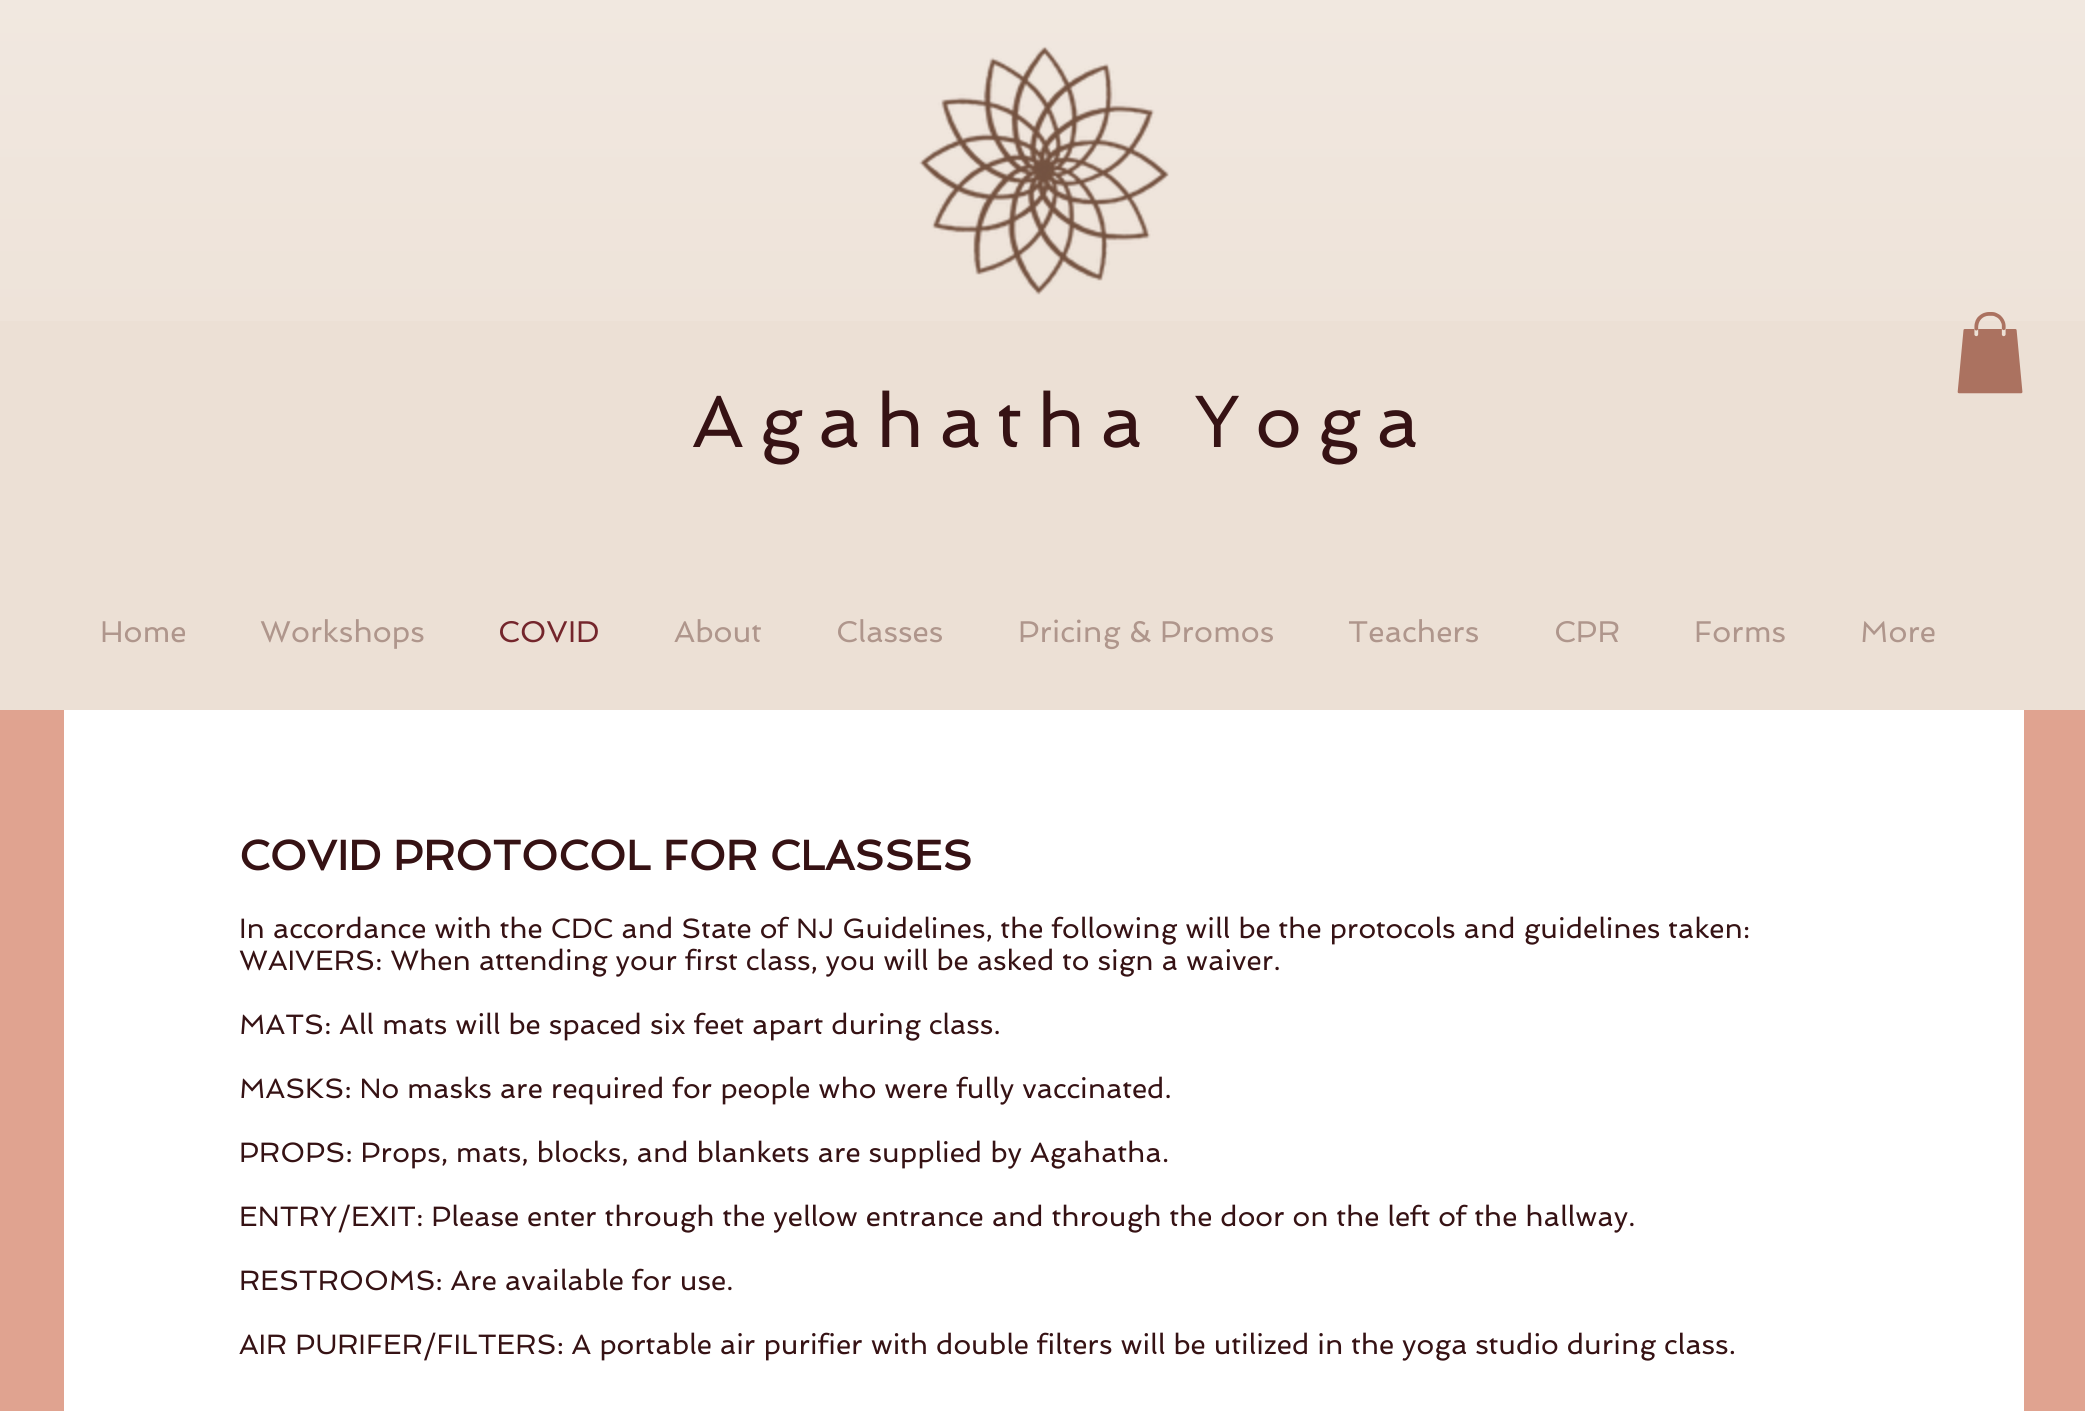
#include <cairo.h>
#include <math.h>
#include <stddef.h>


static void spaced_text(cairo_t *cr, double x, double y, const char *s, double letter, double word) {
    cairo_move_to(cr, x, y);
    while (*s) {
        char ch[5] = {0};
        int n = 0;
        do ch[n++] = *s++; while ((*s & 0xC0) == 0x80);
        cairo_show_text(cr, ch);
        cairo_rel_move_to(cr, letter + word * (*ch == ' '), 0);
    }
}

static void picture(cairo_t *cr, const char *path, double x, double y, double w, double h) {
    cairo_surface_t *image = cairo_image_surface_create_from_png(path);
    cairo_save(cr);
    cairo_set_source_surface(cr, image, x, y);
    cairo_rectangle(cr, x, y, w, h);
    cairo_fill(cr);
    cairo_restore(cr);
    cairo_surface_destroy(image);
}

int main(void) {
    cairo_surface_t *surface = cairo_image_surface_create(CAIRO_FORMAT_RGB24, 2085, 1411);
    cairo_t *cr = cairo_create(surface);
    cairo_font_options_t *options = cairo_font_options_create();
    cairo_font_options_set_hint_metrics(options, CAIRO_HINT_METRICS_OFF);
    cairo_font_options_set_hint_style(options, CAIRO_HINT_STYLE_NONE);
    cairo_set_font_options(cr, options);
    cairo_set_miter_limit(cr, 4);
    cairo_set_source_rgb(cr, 0.878, 0.639, 0.565);
    cairo_paint(cr);
    cairo_set_source_rgb(cr, 0.922, 0.878, 0.835);
    cairo_rectangle(cr, 0, 0, 2085, 710);
    cairo_fill(cr);
    picture(cr, "img1.png", 0, 0, 2085, 321);
    picture(cr, "img2.png", 919, 46, 250, 249);
    picture(cr, "img3.png", 1957, 312, 66, 82);
    cairo_select_font_face(cr, "Spinnaker", CAIRO_FONT_SLANT_NORMAL, CAIRO_FONT_WEIGHT_NORMAL);
    cairo_set_font_size(cr, 74);
    cairo_set_source_rgb(cr, 0.212, 0.071, 0.082);
    spaced_text(cr, 692, 447, "Agahatha Yoga", 14.75, 0);
    cairo_set_font_size(cr, 30);
    cairo_set_source_rgb(cr, 0.686, 0.588, 0.549);
    cairo_move_to(cr, 100, 642);
    cairo_show_text(cr, "Home");
    cairo_move_to(cr, 260, 642);
    cairo_show_text(cr, "Workshops");
    cairo_set_source_rgb(cr, 0.455, 0.149, 0.173);
    cairo_move_to(cr, 498, 642);
    cairo_show_text(cr, "COVID");
    cairo_set_source_rgb(cr, 0.686, 0.588, 0.549);
    cairo_move_to(cr, 674, 642);
    cairo_show_text(cr, "About");
    cairo_move_to(cr, 836, 642);
    cairo_show_text(cr, "Classes");
    cairo_move_to(cr, 1018, 642);
    cairo_show_text(cr, "Pricing & Promos");
    cairo_move_to(cr, 1348, 642);
    cairo_show_text(cr, "Teachers");
    cairo_move_to(cr, 1554, 642);
    cairo_show_text(cr, "CPR");
    cairo_move_to(cr, 1694, 642);
    cairo_show_text(cr, "Forms");
    cairo_move_to(cr, 1860, 642);
    cairo_show_text(cr, "More");
    cairo_set_source_rgb(cr, 1, 1, 1);
    cairo_rectangle(cr, 64, 710, 1960, 701);
    cairo_fill(cr);
    cairo_select_font_face(cr, "Spinnaker", CAIRO_FONT_SLANT_NORMAL, CAIRO_FONT_WEIGHT_BOLD);
    cairo_set_font_size(cr, 42);
    cairo_set_source_rgb(cr, 0.212, 0.071, 0.082);
    cairo_move_to(cr, 239, 870);
    cairo_show_text(cr, "COVID PROTOCOL FOR CLASSES");
    cairo_select_font_face(cr, "Spinnaker", CAIRO_FONT_SLANT_NORMAL, CAIRO_FONT_WEIGHT_NORMAL);
    cairo_set_font_size(cr, 28);
    cairo_move_to(cr, 239, 938);
    cairo_show_text(cr, "In accordance with the CDC and State of NJ Guidelines, the following will be the protocols and guidelines taken:");
    cairo_move_to(cr, 239, 970);
    cairo_show_text(cr, "WAIVERS: When attending your first class, you will be asked to sign a waiver.");
    cairo_move_to(cr, 239, 1034);
    cairo_show_text(cr, "MATS: All mats will be spaced six feet apart during class.");
    cairo_move_to(cr, 239, 1098);
    cairo_show_text(cr, "MASKS: No masks are required for people who were fully vaccinated.");
    cairo_move_to(cr, 239, 1162);
    cairo_show_text(cr, "PROPS: Props, mats, blocks, and blankets are supplied by Agahatha.");
    cairo_move_to(cr, 239, 1226);
    cairo_show_text(cr, "ENTRY/EXIT: Please enter through the yellow entrance and through the door on the left of the hallway.");
    cairo_move_to(cr, 239, 1290);
    cairo_show_text(cr, "RESTROOMS: Are available for use.");
    cairo_move_to(cr, 239, 1354);
    cairo_show_text(cr, "AIR PURIFER/FILTERS: A portable air purifier with double filters will be utilized in the yoga studio during class.");
    cairo_surface_write_to_png(surface, "page.png");
    cairo_font_options_destroy(options);
    cairo_destroy(cr);
    cairo_surface_destroy(surface);
    return 0;
}
